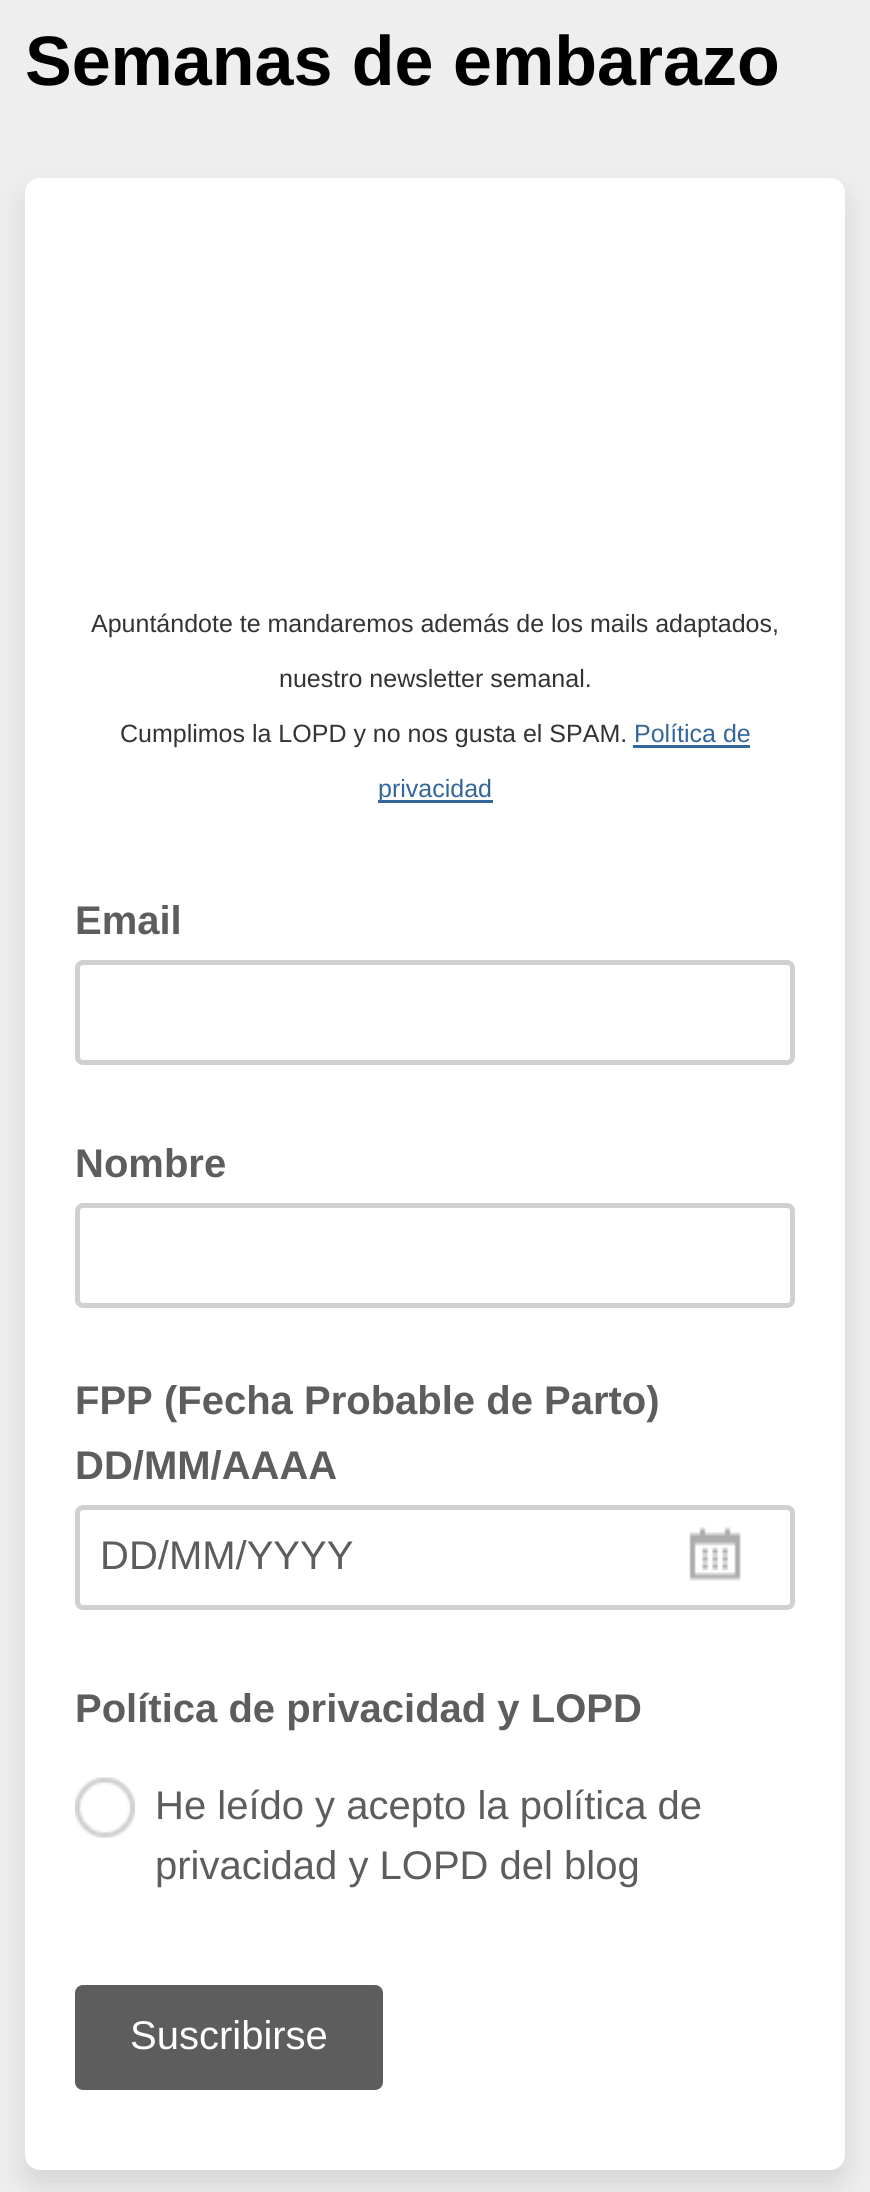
#include <cairo.h>
#include <math.h>
#include <stddef.h>


static void round_rect(cairo_t *cr, double x, double y, double w, double h, double r) {
    cairo_new_sub_path(cr);
    cairo_arc(cr, x + w - r, y + h - r, r, 0, M_PI / 2);
    cairo_arc(cr, x + r, y + h - r, r, M_PI / 2, M_PI);
    cairo_arc(cr, x + r, y + r, r, M_PI, 1.5 * M_PI);
    cairo_arc(cr, x + w - r, y + r, r, 1.5 * M_PI, 2 * M_PI);
    cairo_close_path(cr);
}

static void shadow(cairo_t *cr, double x, double y, double w, double h, double r, double blur, double alpha) {
    cairo_push_group_with_content(cr, CAIRO_CONTENT_ALPHA);
    cairo_set_operator(cr, CAIRO_OPERATOR_SOURCE);
    for (int i = 15; i >= -15 && fmin(w, h) + blur * i / 3 > 0; i -= 2) {
        double e = blur * i / 6;
        cairo_set_source_rgba(cr, 0, 0, 0, alpha * erfc((i - 1) / 8.5) / 2);
        round_rect(cr, x - e, y - e, w + 2 * e, h + 2 * e, fmax(0, fmin(r + e + blur * .6, fmin(w, h) / 2 + e)));
        cairo_fill(cr);
    }
    cairo_pattern_t *soft = cairo_pop_group(cr);
    cairo_mask(cr, soft);
    cairo_pattern_destroy(soft);
}

static void picture(cairo_t *cr, const char *path, double x, double y, double w, double h) {
    cairo_surface_t *image = cairo_image_surface_create_from_png(path);
    cairo_save(cr);
    cairo_set_source_surface(cr, image, x, y);
    cairo_rectangle(cr, x, y, w, h);
    cairo_fill(cr);
    cairo_restore(cr);
    cairo_surface_destroy(image);
}

int main(void) {
    cairo_surface_t *surface = cairo_image_surface_create(CAIRO_FORMAT_RGB24, 870, 2192);
    cairo_t *cr = cairo_create(surface);
    cairo_font_options_t *options = cairo_font_options_create();
    cairo_font_options_set_hint_metrics(options, CAIRO_HINT_METRICS_OFF);
    cairo_font_options_set_hint_style(options, CAIRO_HINT_STYLE_NONE);
    cairo_set_font_options(cr, options);
    cairo_set_miter_limit(cr, 4);
    cairo_set_source_rgb(cr, 0.933, 0.933, 0.933);
    cairo_paint(cr);
    cairo_select_font_face(cr, "Liberation Sans", CAIRO_FONT_SLANT_NORMAL, CAIRO_FONT_WEIGHT_BOLD);
    cairo_set_font_size(cr, 70);
    cairo_set_source_rgb(cr, 0, 0, 0);
    cairo_move_to(cr, 25, 85);
    cairo_show_text(cr, "Semanas de embarazo");
    cairo_set_source_rgb(cr, 0.051, 0.071, 0.086);
    shadow(cr, 25, 193, 820, 1992, 15, 15, 0.12);
    cairo_set_source_rgb(cr, 1, 1, 1);
    round_rect(cr, 25, 178, 820, 1992, 15);
    cairo_fill(cr);
    cairo_select_font_face(cr, "Liberation Sans", CAIRO_FONT_SLANT_NORMAL, CAIRO_FONT_WEIGHT_NORMAL);
    cairo_set_font_size(cr, 25);
    cairo_set_source_rgb(cr, 0.2, 0.2, 0.2);
    cairo_move_to(cr, 91, 632);
    cairo_show_text(cr, "Apuntándote te mandaremos además de los mails adaptados,");
    cairo_move_to(cr, 279, 687);
    cairo_show_text(cr, "nuestro newsletter semanal.");
    cairo_move_to(cr, 120, 742);
    cairo_show_text(cr, "Cumplimos la LOPD y no nos gusta el SPAM.");
    cairo_set_source_rgb(cr, 0.2, 0.4, 0.6);
    cairo_move_to(cr, 634, 742);
    cairo_show_text(cr, "Política de");
    cairo_rectangle(cr, 633, 745, 117, 3);
    cairo_fill(cr);
    cairo_rectangle(cr, 378, 800, 115, 3);
    cairo_fill(cr);
    cairo_move_to(cr, 378, 797);
    cairo_show_text(cr, "privacidad");
    cairo_select_font_face(cr, "Liberation Sans", CAIRO_FONT_SLANT_NORMAL, CAIRO_FONT_WEIGHT_BOLD);
    cairo_set_font_size(cr, 40);
    cairo_set_source_rgb(cr, 0.365, 0.365, 0.365);
    cairo_move_to(cr, 75, 934);
    cairo_show_text(cr, "Email");
    round_rect(cr, 77.5, 962.5, 715, 100, 5.5);
    cairo_set_source_rgb(cr, 0.816, 0.816, 0.816);
    cairo_set_line_width(cr, 5);
    cairo_stroke(cr);
    cairo_set_source_rgb(cr, 0.365, 0.365, 0.365);
    cairo_move_to(cr, 75, 1177);
    cairo_show_text(cr, "Nombre");
    round_rect(cr, 77.5, 1205.5, 715, 100, 5.5);
    cairo_set_source_rgb(cr, 0.816, 0.816, 0.816);
    cairo_stroke(cr);
    cairo_set_source_rgb(cr, 0.365, 0.365, 0.365);
    cairo_move_to(cr, 75, 1414);
    cairo_show_text(cr, "FPP (Fecha Probable de Parto)");
    cairo_move_to(cr, 75, 1479);
    cairo_show_text(cr, "DD/MM/AAAA");
    round_rect(cr, 77.5, 1507.5, 715, 100, 5.5);
    cairo_set_source_rgb(cr, 0.816, 0.816, 0.816);
    cairo_stroke(cr);
    cairo_select_font_face(cr, "Liberation Sans", CAIRO_FONT_SLANT_NORMAL, CAIRO_FONT_WEIGHT_NORMAL);
    cairo_set_source_rgb(cr, 0.365, 0.365, 0.365);
    cairo_move_to(cr, 100, 1569);
    cairo_show_text(cr, "DD/MM/YYYY");
    picture(cr, "img1.png", 689, 1527, 52, 54);
    cairo_select_font_face(cr, "Liberation Sans", CAIRO_FONT_SLANT_NORMAL, CAIRO_FONT_WEIGHT_BOLD);
    cairo_move_to(cr, 75, 1722);
    cairo_show_text(cr, "Política de privacidad y LOPD");
    picture(cr, "img2.png", 75, 1777, 60, 61);
    cairo_select_font_face(cr, "Liberation Sans", CAIRO_FONT_SLANT_NORMAL, CAIRO_FONT_WEIGHT_NORMAL);
    cairo_move_to(cr, 155, 1819);
    cairo_show_text(cr, "He leído y acepto la política de");
    cairo_move_to(cr, 155, 1879);
    cairo_show_text(cr, "privacidad y LOPD del blog");
    round_rect(cr, 75, 1985, 308, 105, 8);
    cairo_fill(cr);
    cairo_set_source_rgb(cr, 1, 1, 1);
    cairo_move_to(cr, 130, 2049);
    cairo_show_text(cr, "Suscribirse");
    cairo_surface_write_to_png(surface, "page.png");
    cairo_font_options_destroy(options);
    cairo_destroy(cr);
    cairo_surface_destroy(surface);
    return 0;
}
